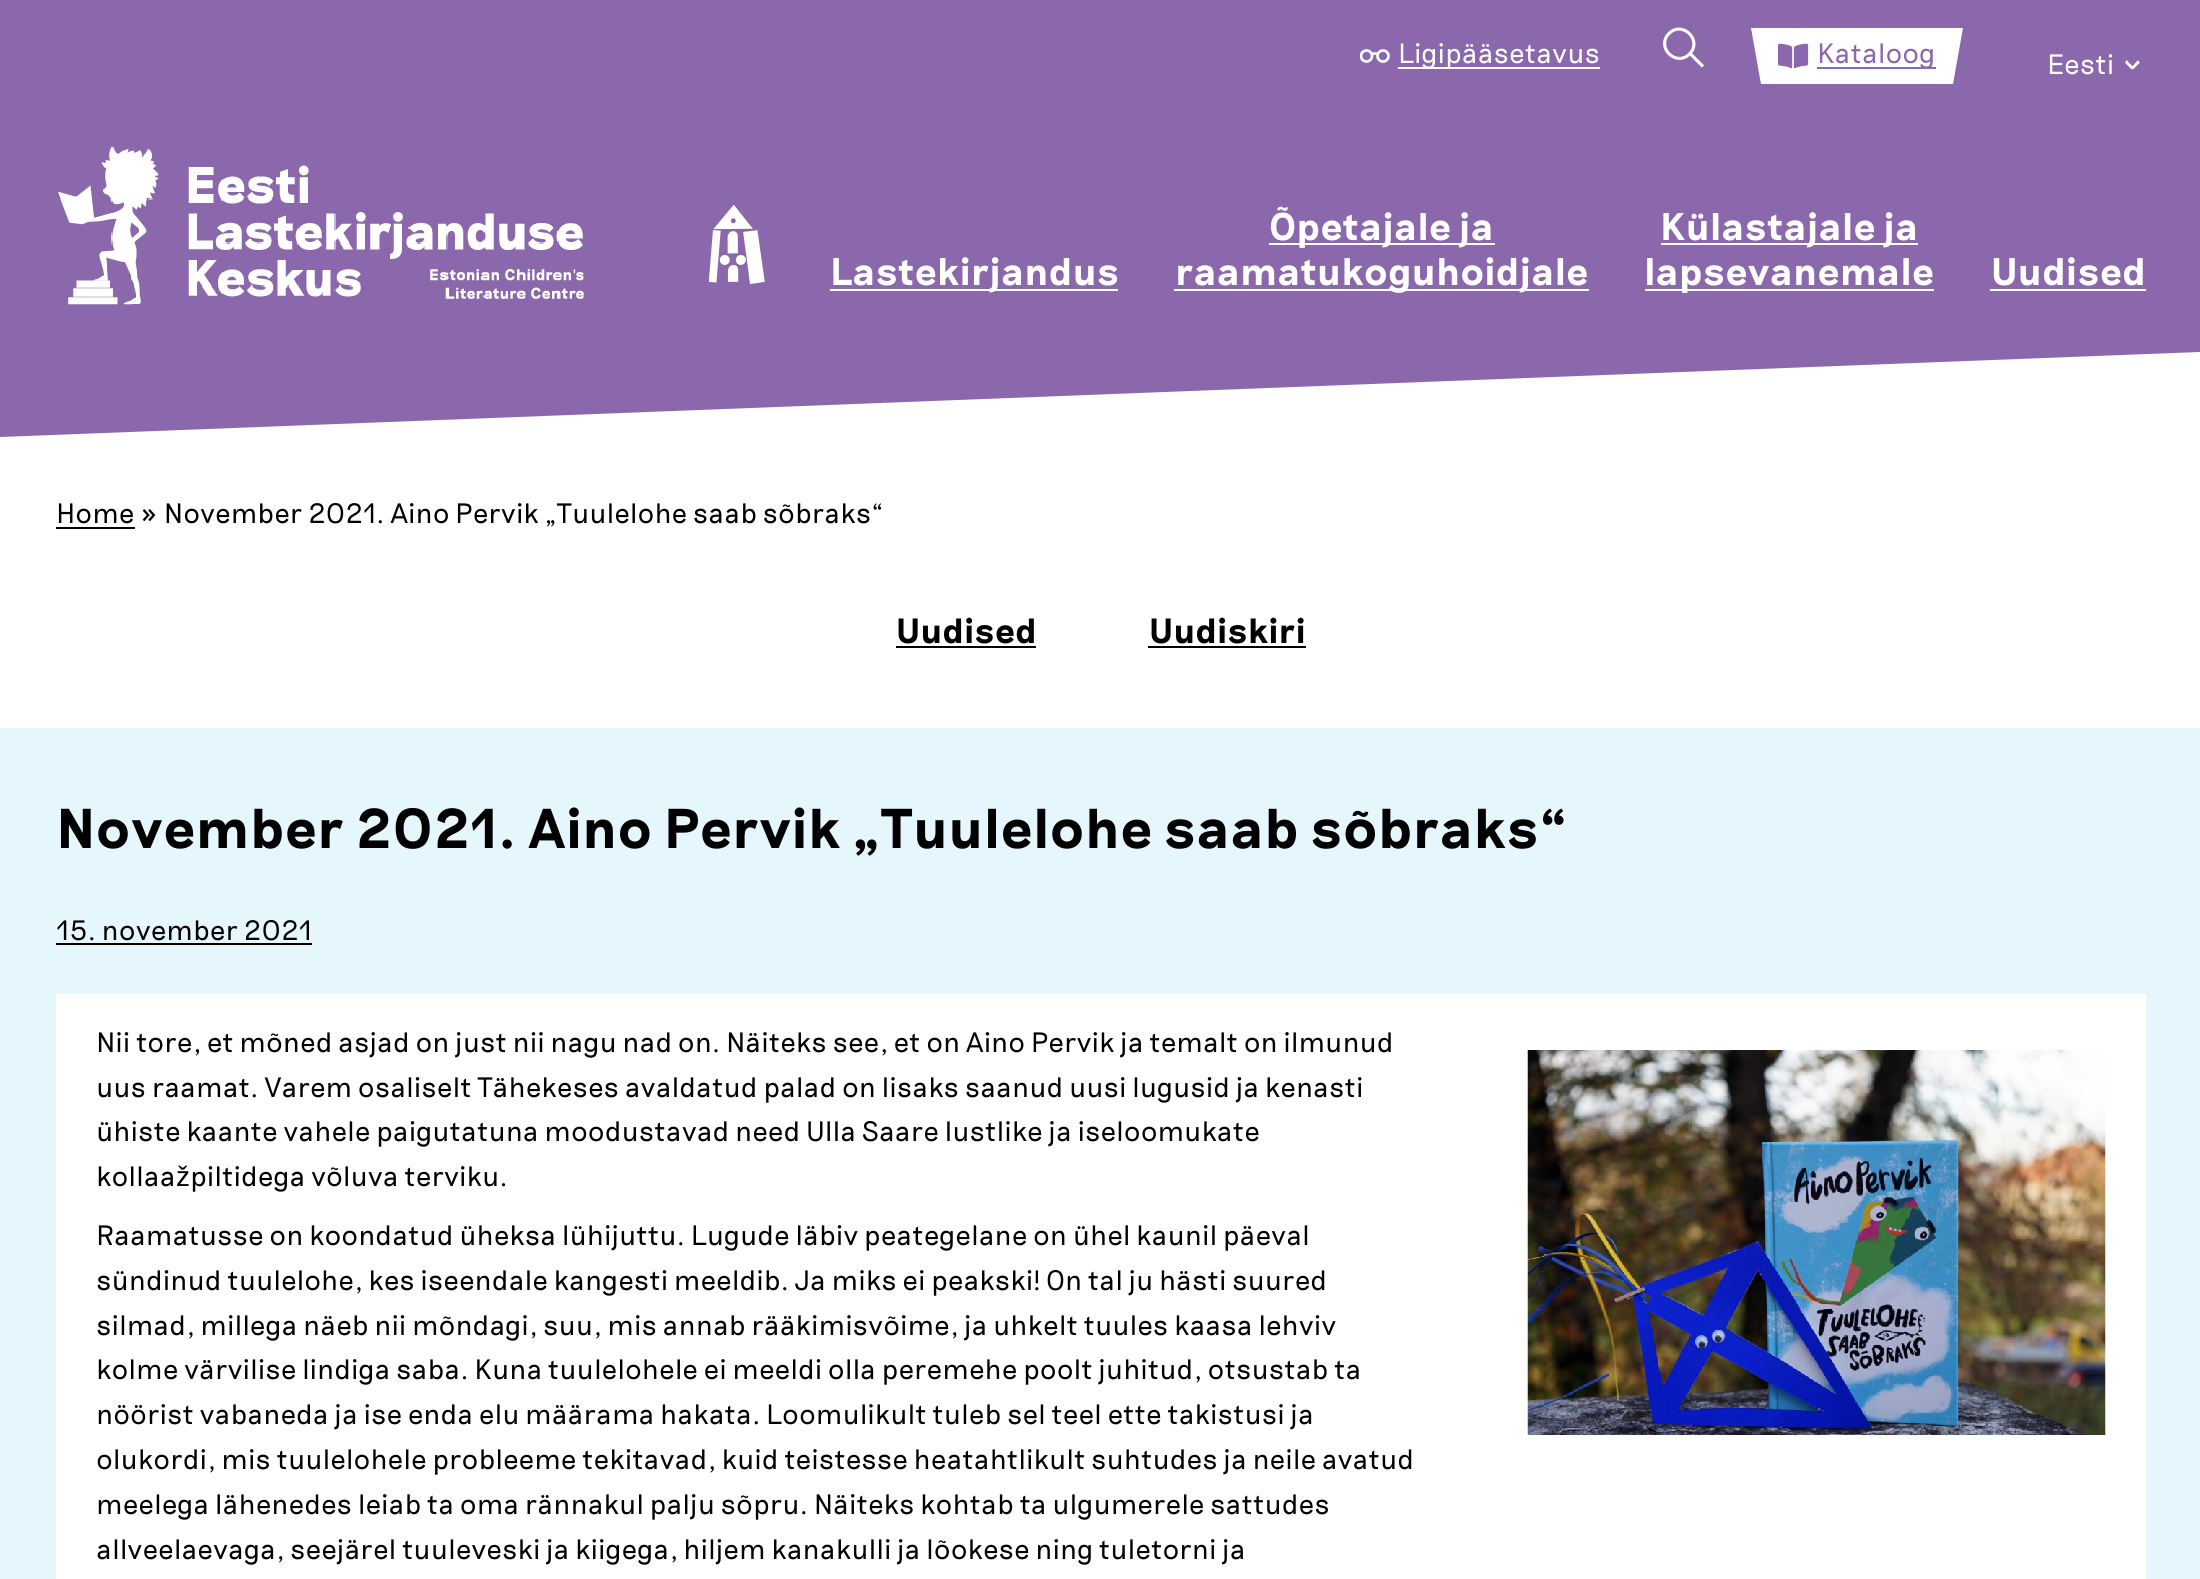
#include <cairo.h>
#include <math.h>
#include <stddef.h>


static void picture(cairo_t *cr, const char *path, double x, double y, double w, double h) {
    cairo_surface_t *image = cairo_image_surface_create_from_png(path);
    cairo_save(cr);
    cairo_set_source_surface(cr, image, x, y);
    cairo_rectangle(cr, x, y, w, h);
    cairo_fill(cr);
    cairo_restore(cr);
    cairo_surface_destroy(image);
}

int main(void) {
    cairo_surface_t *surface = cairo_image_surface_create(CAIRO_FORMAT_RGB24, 2200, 1579);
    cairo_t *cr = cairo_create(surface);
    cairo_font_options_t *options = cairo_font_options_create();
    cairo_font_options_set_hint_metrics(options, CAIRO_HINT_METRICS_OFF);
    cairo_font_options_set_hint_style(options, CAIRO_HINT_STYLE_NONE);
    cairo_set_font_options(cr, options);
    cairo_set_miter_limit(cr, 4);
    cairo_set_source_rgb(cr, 1, 1, 1);
    cairo_paint(cr);
    cairo_set_source_rgb(cr, 0.545, 0.408, 0.675);
    cairo_new_path(cr);
    cairo_move_to(cr, 0, 0);
    cairo_line_to(cr, 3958, 0);
    cairo_line_to(cr, 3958, 284);
    cairo_line_to(cr, 0, 437);
    cairo_close_path(cr);
    cairo_fill(cr);
    cairo_save(cr);
    cairo_rectangle(cr, 1360, 47, 38, 18);
    cairo_clip(cr);
    cairo_arc(cr, 1366.5, 56, 5.5, 0, 2 * M_PI);
    cairo_set_source_rgb(cr, 1, 1, 1);
    cairo_set_line_width(cr, 2.7);
    cairo_stroke(cr);
    cairo_restore(cr);
    cairo_arc(cr, 1383, 56, 5.5, 0, 2 * M_PI);
    cairo_set_source_rgb(cr, 1, 1, 1);
    cairo_set_line_width(cr, 2.7);
    cairo_stroke(cr);
    cairo_new_path(cr);
    cairo_move_to(cr, 1372, 54.5);
    cairo_curve_to(cr, 1373.5, 53, 1376, 53, 1377.5, 54.5);
    cairo_stroke(cr);
    cairo_rectangle(cr, 1398, 67, 202, 2);
    cairo_fill(cr);
    cairo_select_font_face(cr, "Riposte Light", CAIRO_FONT_SLANT_NORMAL, CAIRO_FONT_WEIGHT_NORMAL);
    cairo_set_font_size(cr, 28);
    cairo_move_to(cr, 1398, 63);
    cairo_show_text(cr, "Ligipääsetavus");
    cairo_new_path(cr);
    cairo_move_to(cr, 1669, 33.5);
    cairo_curve_to(cr, 1682.5, 20, 1703, 40.5, 1689.5, 54);
    cairo_curve_to(cr, 1676, 67.5, 1655.5, 47, 1669, 33.5);
    cairo_close_path(cr);
    cairo_move_to(cr, 1690, 53.5);
    cairo_line_to(cr, 1703, 66.5);
    cairo_set_line_width(cr, 3.1);
    cairo_stroke(cr);
    cairo_new_path(cr);
    cairo_move_to(cr, 1751, 28);
    cairo_line_to(cr, 1761, 84);
    cairo_line_to(cr, 1953, 84);
    cairo_line_to(cr, 1963, 28);
    cairo_close_path(cr);
    cairo_fill(cr);
    picture(cr, "img1.png", 1778, 43, 31, 26);
    cairo_set_source_rgb(cr, 0.545, 0.408, 0.675);
    cairo_rectangle(cr, 1817, 67, 119, 2);
    cairo_fill(cr);
    cairo_move_to(cr, 1817, 63);
    cairo_show_text(cr, "Kataloog");
    cairo_set_source_rgb(cr, 1, 1, 1);
    cairo_move_to(cr, 2047, 74);
    cairo_show_text(cr, "Eesti");
    cairo_set_font_size(cr, 56);
    cairo_save(cr);
    cairo_translate(cr, 2145, 30);
    cairo_rotate(cr, 180 * M_PI / 180);
    cairo_move_to(cr, 0, 0);
    cairo_show_text(cr, "^");
    cairo_restore(cr);
    picture(cr, "img2.png", 58, 146, 526, 159);
    picture(cr, "img3.png", 709, 205, 56, 80);
    cairo_rectangle(cr, 830, 289, 288, 2);
    cairo_fill(cr);
    cairo_select_font_face(cr, "Riposte", CAIRO_FONT_SLANT_NORMAL, CAIRO_FONT_WEIGHT_BOLD);
    cairo_set_font_size(cr, 38.5);
    cairo_move_to(cr, 830, 285);
    cairo_show_text(cr, "Lastekirjandus");
    cairo_rectangle(cr, 1269, 243, 226, 2);
    cairo_fill(cr);
    cairo_move_to(cr, 1269, 240);
    cairo_show_text(cr, "Õpetajale ja");
    cairo_rectangle(cr, 1174, 289, 415, 2);
    cairo_fill(cr);
    cairo_move_to(cr, 1175, 285);
    cairo_show_text(cr, "raamatukoguhoidjale");
    cairo_rectangle(cr, 1661, 243, 257, 2);
    cairo_fill(cr);
    cairo_move_to(cr, 1660, 240);
    cairo_show_text(cr, "Külastajale ja");
    cairo_rectangle(cr, 1645, 289, 289, 2);
    cairo_fill(cr);
    cairo_move_to(cr, 1644, 285);
    cairo_show_text(cr, "lapsevanemale");
    cairo_move_to(cr, 1991, 285);
    cairo_show_text(cr, "Uudised");
    cairo_rectangle(cr, 1990, 289, 156, 2);
    cairo_fill(cr);
    cairo_select_font_face(cr, "Riposte Light", CAIRO_FONT_SLANT_NORMAL, CAIRO_FONT_WEIGHT_NORMAL);
    cairo_set_font_size(cr, 28);
    cairo_set_source_rgb(cr, 0, 0, 0);
    cairo_move_to(cr, 56, 523);
    cairo_show_text(cr, "Home » November 2021. Aino Pervik „Tuulelohe saab sõbraks“");
    cairo_rectangle(cr, 56, 527, 79, 2);
    cairo_fill(cr);
    cairo_select_font_face(cr, "Riposte", CAIRO_FONT_SLANT_NORMAL, CAIRO_FONT_WEIGHT_BOLD);
    cairo_set_font_size(cr, 35);
    cairo_move_to(cr, 896, 643);
    cairo_show_text(cr, "Uudised");
    cairo_rectangle(cr, 896, 646, 140, 2);
    cairo_fill(cr);
    cairo_move_to(cr, 1149, 643);
    cairo_show_text(cr, "Uudiskiri");
    cairo_rectangle(cr, 1148, 646, 158, 2);
    cairo_fill(cr);
    cairo_set_source_rgb(cr, 0.902, 0.961, 0.992);
    cairo_rectangle(cr, 0, 728, 2200, 851);
    cairo_fill(cr);
    cairo_set_font_size(cr, 56);
    cairo_set_source_rgb(cr, 0, 0, 0);
    cairo_move_to(cr, 56, 848);
    cairo_show_text(cr, "November 2021. Aino Pervik „Tuulelohe saab sõbraks“");
    cairo_select_font_face(cr, "Riposte Light", CAIRO_FONT_SLANT_NORMAL, CAIRO_FONT_WEIGHT_NORMAL);
    cairo_set_font_size(cr, 28);
    cairo_move_to(cr, 56, 940);
    cairo_show_text(cr, "15. november 2021");
    cairo_rectangle(cr, 56, 943, 256, 2);
    cairo_fill(cr);
    cairo_set_source_rgb(cr, 1, 1, 1);
    cairo_rectangle(cr, 56, 994, 2090, 585);
    cairo_fill(cr);
    cairo_set_source_rgb(cr, 0, 0, 0);
    cairo_move_to(cr, 96, 1052);
    cairo_show_text(cr, "Nii tore, et mõned asjad on just nii nagu nad on. Näiteks see, et on Aino Pervik ja temalt on ilmunud");
    cairo_move_to(cr, 96, 1097);
    cairo_show_text(cr, "uus raamat. Varem osaliselt Tähekeses avaldatud palad on lisaks saanud uusi lugusid ja kenasti");
    cairo_move_to(cr, 96, 1141);
    cairo_show_text(cr, "ühiste kaante vahele paigutatuna moodustavad need Ulla Saare lustlike ja iseloomukate");
    cairo_move_to(cr, 96, 1186);
    cairo_show_text(cr, "kollaa");
    cairo_select_font_face(cr, "Liberation Sans", CAIRO_FONT_SLANT_NORMAL, CAIRO_FONT_WEIGHT_NORMAL);
    cairo_move_to(cr, 176, 1186);
    cairo_show_text(cr, "ž");
    cairo_select_font_face(cr, "Riposte Light", CAIRO_FONT_SLANT_NORMAL, CAIRO_FONT_WEIGHT_NORMAL);
    cairo_move_to(cr, 190, 1186);
    cairo_show_text(cr, "piltidega võluva terviku.");
    cairo_move_to(cr, 96, 1245);
    cairo_show_text(cr, "Raamatusse on koondatud üheksa lühijuttu. Lugude läbiv peategelane on ühel kaunil päeval");
    cairo_move_to(cr, 96, 1290);
    cairo_show_text(cr, "sündinud tuulelohe, kes iseendale kangesti meeldib. Ja miks ei peakski! On tal ju hästi suured");
    cairo_move_to(cr, 96, 1335);
    cairo_show_text(cr, "silmad, millega näeb nii mõndagi, suu, mis annab rääkimisvõime, ja uhkelt tuules kaasa lehviv");
    cairo_move_to(cr, 96, 1379);
    cairo_show_text(cr, "kolme värvilise lindiga saba. Kuna tuulelohele ei meeldi olla peremehe poolt juhitud, otsustab ta");
    cairo_move_to(cr, 96, 1424);
    cairo_show_text(cr, "nöörist vabaneda ja ise enda elu määrama hakata. Loomulikult tuleb sel teel ette takistusi ja");
    cairo_move_to(cr, 96, 1469);
    cairo_show_text(cr, "olukordi, mis tuulelohele probleeme tekitavad, kuid teistesse heatahtlikult suhtudes ja neile avatud");
    cairo_move_to(cr, 96, 1514);
    cairo_show_text(cr, "meelega lähenedes leiab ta oma rännakul palju sõpru. Näiteks kohtab ta ulgumerele sattudes");
    cairo_move_to(cr, 96, 1559);
    cairo_show_text(cr, "allveelaevaga, seejärel tuuleveski ja kiigega, hiljem kanakulli ja lõokese ning tuletorni ja");
    picture(cr, "img4.png", 1527, 1050, 579, 385);
    cairo_surface_write_to_png(surface, "page.png");
    cairo_font_options_destroy(options);
    cairo_destroy(cr);
    cairo_surface_destroy(surface);
    return 0;
}
